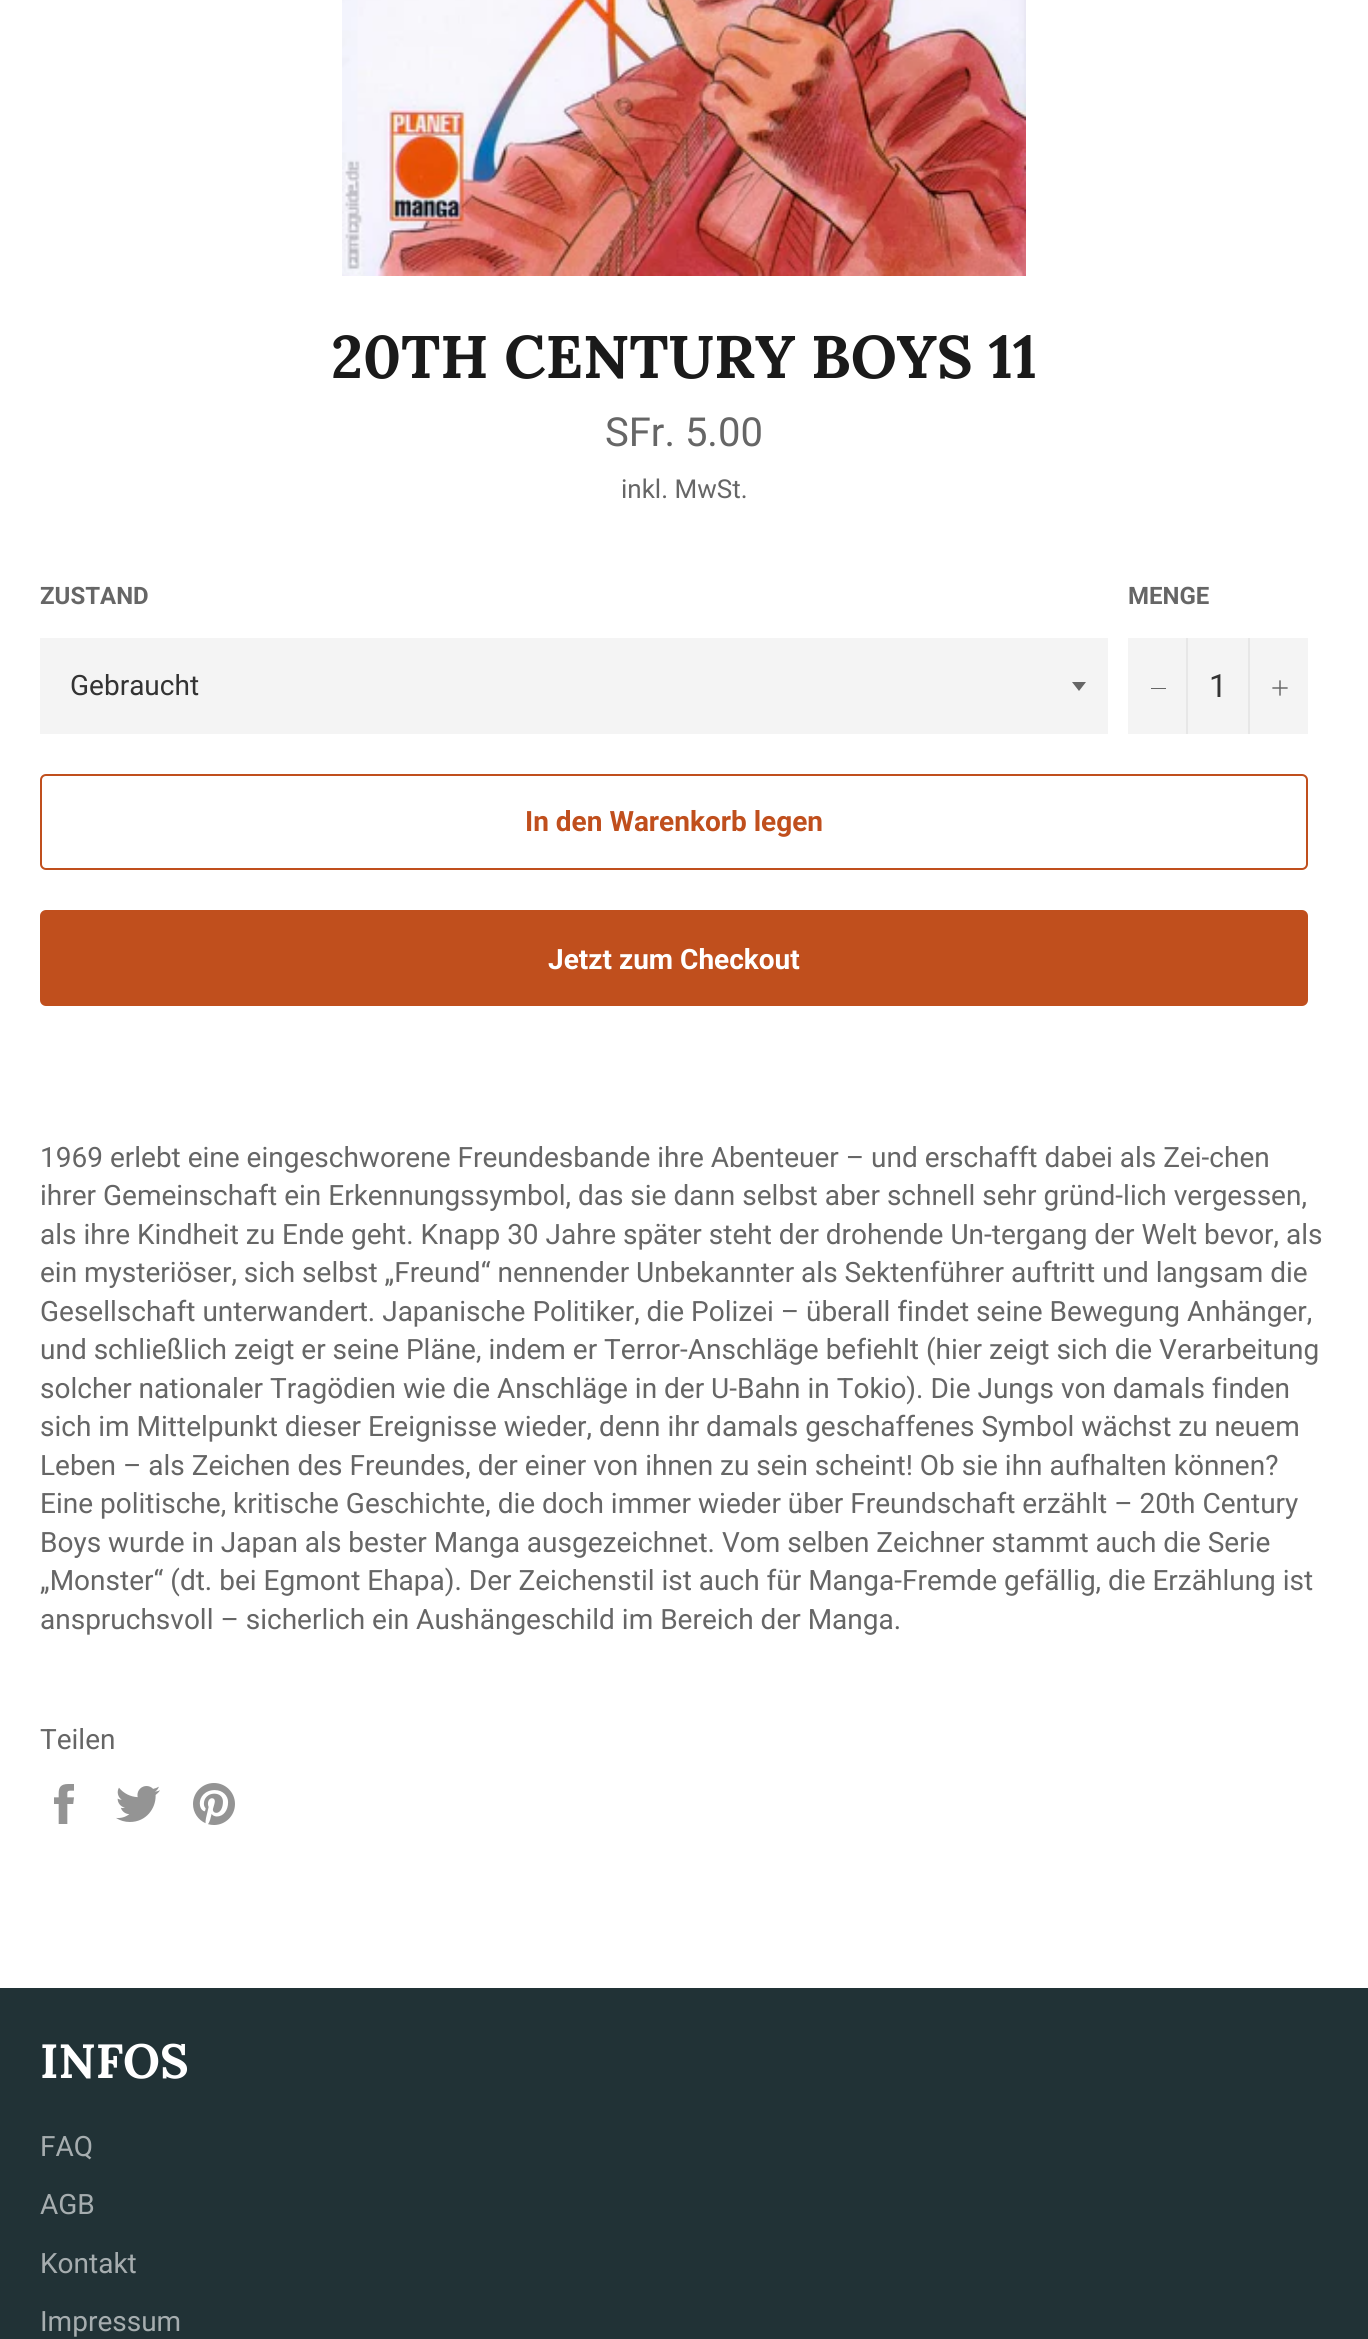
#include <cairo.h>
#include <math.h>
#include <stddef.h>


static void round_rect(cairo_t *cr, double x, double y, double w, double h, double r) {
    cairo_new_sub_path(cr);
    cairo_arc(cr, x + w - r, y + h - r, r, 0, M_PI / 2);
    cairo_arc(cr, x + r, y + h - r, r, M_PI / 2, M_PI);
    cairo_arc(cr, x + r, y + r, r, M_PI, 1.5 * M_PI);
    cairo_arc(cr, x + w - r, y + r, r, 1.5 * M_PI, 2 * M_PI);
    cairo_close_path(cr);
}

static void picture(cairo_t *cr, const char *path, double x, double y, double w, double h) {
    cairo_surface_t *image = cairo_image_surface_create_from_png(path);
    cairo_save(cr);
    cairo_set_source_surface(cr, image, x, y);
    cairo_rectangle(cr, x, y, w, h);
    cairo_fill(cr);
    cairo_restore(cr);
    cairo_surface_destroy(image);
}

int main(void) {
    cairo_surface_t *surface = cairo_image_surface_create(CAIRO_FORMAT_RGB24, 1368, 2339);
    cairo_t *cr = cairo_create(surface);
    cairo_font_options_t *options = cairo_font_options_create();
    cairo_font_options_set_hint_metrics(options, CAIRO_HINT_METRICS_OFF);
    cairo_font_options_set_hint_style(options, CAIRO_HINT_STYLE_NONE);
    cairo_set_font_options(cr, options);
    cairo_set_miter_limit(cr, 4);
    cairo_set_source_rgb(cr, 1, 1, 1);
    cairo_paint(cr);
    picture(cr, "img1.png", 342, 0, 684, 276);
    cairo_select_font_face(cr, "Lora", CAIRO_FONT_SLANT_NORMAL, CAIRO_FONT_WEIGHT_BOLD);
    cairo_set_font_size(cr, 60);
    cairo_set_source_rgb(cr, 0.102, 0.102, 0.102);
    cairo_move_to(cr, 331, 378);
    cairo_show_text(cr, "20TH CENTURY BOYS 11");
    cairo_select_font_face(cr, "Roboto", CAIRO_FONT_SLANT_NORMAL, CAIRO_FONT_WEIGHT_NORMAL);
    cairo_set_font_size(cr, 40);
    cairo_set_source_rgb(cr, 0.4, 0.4, 0.4);
    cairo_move_to(cr, 605, 446);
    cairo_show_text(cr, "SFr. 5.00");
    cairo_set_font_size(cr, 26);
    cairo_move_to(cr, 621, 498);
    cairo_show_text(cr, "inkl. MwSt.");
    cairo_select_font_face(cr, "Roboto", CAIRO_FONT_SLANT_NORMAL, CAIRO_FONT_WEIGHT_BOLD);
    cairo_set_font_size(cr, 24);
    cairo_move_to(cr, 40, 604);
    cairo_show_text(cr, "ZUSTAND");
    cairo_set_source_rgb(cr, 0.957, 0.957, 0.957);
    cairo_rectangle(cr, 40, 638, 1068, 96);
    cairo_fill(cr);
    cairo_set_source_rgb(cr, 0.4, 0.4, 0.4);
    cairo_new_path(cr);
    cairo_move_to(cr, 1072, 682);
    cairo_line_to(cr, 1079, 691);
    cairo_line_to(cr, 1086, 682);
    cairo_close_path(cr);
    cairo_fill(cr);
    cairo_select_font_face(cr, "Roboto", CAIRO_FONT_SLANT_NORMAL, CAIRO_FONT_WEIGHT_NORMAL);
    cairo_set_font_size(cr, 28);
    cairo_set_source_rgb(cr, 0.2, 0.2, 0.2);
    cairo_move_to(cr, 70, 695);
    cairo_show_text(cr, "Gebraucht");
    cairo_select_font_face(cr, "Roboto", CAIRO_FONT_SLANT_NORMAL, CAIRO_FONT_WEIGHT_BOLD);
    cairo_set_font_size(cr, 24);
    cairo_set_source_rgb(cr, 0.4, 0.4, 0.4);
    cairo_move_to(cr, 1128, 604);
    cairo_show_text(cr, "MENGE");
    cairo_set_source_rgb(cr, 0.957, 0.957, 0.957);
    cairo_rectangle(cr, 1128, 638, 180, 96);
    cairo_fill(cr);
    cairo_set_source_rgb(cr, 0.906, 0.906, 0.906);
    cairo_rectangle(cr, 1186, 638, 2, 96);
    cairo_fill(cr);
    cairo_set_source_rgb(cr, 0.4, 0.4, 0.4);
    cairo_rectangle(cr, 1151, 688, 15, 1);
    cairo_fill(cr);
    cairo_select_font_face(cr, "Roboto", CAIRO_FONT_SLANT_NORMAL, CAIRO_FONT_WEIGHT_NORMAL);
    cairo_set_font_size(cr, 32);
    cairo_set_source_rgb(cr, 0.2, 0.2, 0.2);
    cairo_move_to(cr, 1209, 697);
    cairo_show_text(cr, "1");
    cairo_set_source_rgb(cr, 0.906, 0.906, 0.906);
    cairo_rectangle(cr, 1248, 638, 2, 96);
    cairo_fill(cr);
    picture(cr, "img2.png", 1272, 680, 16, 16);
    round_rect(cr, 41, 775, 1266, 94, 5);
    cairo_set_source_rgb(cr, 0.753, 0.31, 0.114);
    cairo_stroke(cr);
    cairo_select_font_face(cr, "Roboto", CAIRO_FONT_SLANT_NORMAL, CAIRO_FONT_WEIGHT_BOLD);
    cairo_set_font_size(cr, 28);
    cairo_move_to(cr, 525, 831);
    cairo_show_text(cr, "In den Warenkorb legen");
    round_rect(cr, 40, 910, 1268, 96, 6);
    cairo_fill(cr);
    cairo_set_source_rgb(cr, 1, 1, 1);
    cairo_move_to(cr, 548, 969);
    cairo_show_text(cr, "Jetzt zum Checkout");
    cairo_select_font_face(cr, "Roboto", CAIRO_FONT_SLANT_NORMAL, CAIRO_FONT_WEIGHT_NORMAL);
    cairo_set_source_rgb(cr, 0.4, 0.4, 0.4);
    cairo_move_to(cr, 40, 1167);
    cairo_show_text(cr, "1969 erlebt eine eingeschworene Freundesbande ihre Abenteuer – und erschafft dabei als Zei-chen");
    cairo_move_to(cr, 40, 1205);
    cairo_show_text(cr, "ihrer Gemeinschaft ein Erkennungssymbol, das sie dann selbst aber schnell sehr gründ-lich vergessen,");
    cairo_move_to(cr, 40, 1244);
    cairo_show_text(cr, "als ihre Kindheit zu Ende geht. Knapp 30 Jahre später steht der drohende Un-tergang der Welt bevor, als");
    cairo_move_to(cr, 40, 1282);
    cairo_show_text(cr, "ein mysteriöser, sich selbst „Freund“ nennender Unbekannter als Sektenführer auftritt und langsam die");
    cairo_move_to(cr, 40, 1321);
    cairo_show_text(cr, "Gesellschaft unterwandert. Japanische Politiker, die Polizei – überall findet seine Bewegung Anhänger,");
    cairo_move_to(cr, 40, 1359);
    cairo_show_text(cr, "und schließlich zeigt er seine Pläne, indem er Terror-Anschläge befiehlt (hier zeigt sich die Verarbeitung");
    cairo_move_to(cr, 40, 1398);
    cairo_show_text(cr, "solcher nationaler Tragödien wie die Anschläge in der U-Bahn in Tokio). Die Jungs von damals finden");
    cairo_move_to(cr, 40, 1436);
    cairo_show_text(cr, "sich im Mittelpunkt dieser Ereignisse wieder, denn ihr damals geschaffenes Symbol wächst zu neuem");
    cairo_move_to(cr, 40, 1475);
    cairo_show_text(cr, "Leben – als Zeichen des Freundes, der einer von ihnen zu sein scheint! Ob sie ihn aufhalten können?");
    cairo_move_to(cr, 40, 1513);
    cairo_show_text(cr, "Eine politische, kritische Geschichte, die doch immer wieder über Freundschaft erzählt – 20th Century");
    cairo_move_to(cr, 40, 1552);
    cairo_show_text(cr, "Boys wurde in Japan als bester Manga ausgezeichnet. Vom selben Zeichner stammt auch die Serie");
    cairo_move_to(cr, 40, 1590);
    cairo_show_text(cr, "„Monster“ (dt. bei Egmont Ehapa). Der Zeichenstil ist auch für Manga-Fremde gefällig, die Erzählung ist");
    cairo_move_to(cr, 40, 1629);
    cairo_show_text(cr, "anspruchsvoll – sicherlich ein Aushängeschild im Bereich der Manga.");
    cairo_move_to(cr, 40, 1749);
    cairo_show_text(cr, "Teilen");
    picture(cr, "img3.png", 54, 1784, 20, 40);
    picture(cr, "img4.png", 116, 1786, 44, 36);
    picture(cr, "img5.png", 193, 1783, 42, 42);
    cairo_set_source_rgb(cr, 0.129, 0.196, 0.212);
    cairo_rectangle(cr, 0, 1988, 1368, 351);
    cairo_fill(cr);
    cairo_select_font_face(cr, "Lora", CAIRO_FONT_SLANT_NORMAL, CAIRO_FONT_WEIGHT_BOLD);
    cairo_set_font_size(cr, 48);
    cairo_set_source_rgb(cr, 1, 1, 1);
    cairo_move_to(cr, 40, 2078);
    cairo_show_text(cr, "INFOS");
    cairo_select_font_face(cr, "Roboto", CAIRO_FONT_SLANT_NORMAL, CAIRO_FONT_WEIGHT_NORMAL);
    cairo_set_font_size(cr, 28);
    cairo_set_source_rgb(cr, 0.651, 0.678, 0.686);
    cairo_move_to(cr, 40, 2156);
    cairo_show_text(cr, "FAQ");
    cairo_move_to(cr, 40, 2214);
    cairo_show_text(cr, "AGB");
    cairo_move_to(cr, 40, 2273);
    cairo_show_text(cr, "Kontakt");
    cairo_move_to(cr, 40, 2331);
    cairo_show_text(cr, "Impressum");
    cairo_surface_write_to_png(surface, "page.png");
    cairo_font_options_destroy(options);
    cairo_destroy(cr);
    cairo_surface_destroy(surface);
    return 0;
}
